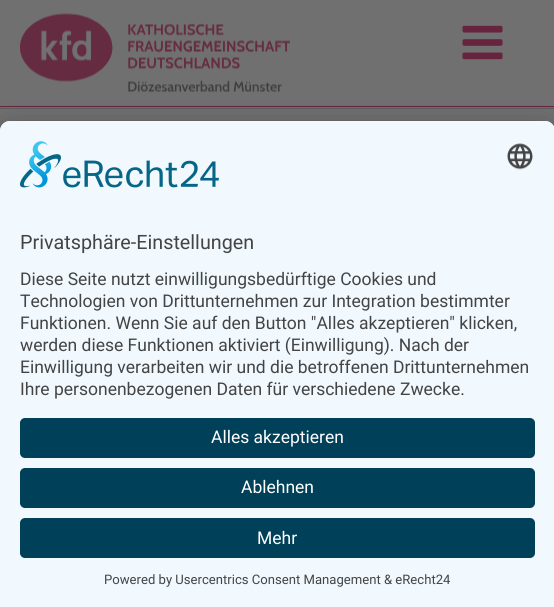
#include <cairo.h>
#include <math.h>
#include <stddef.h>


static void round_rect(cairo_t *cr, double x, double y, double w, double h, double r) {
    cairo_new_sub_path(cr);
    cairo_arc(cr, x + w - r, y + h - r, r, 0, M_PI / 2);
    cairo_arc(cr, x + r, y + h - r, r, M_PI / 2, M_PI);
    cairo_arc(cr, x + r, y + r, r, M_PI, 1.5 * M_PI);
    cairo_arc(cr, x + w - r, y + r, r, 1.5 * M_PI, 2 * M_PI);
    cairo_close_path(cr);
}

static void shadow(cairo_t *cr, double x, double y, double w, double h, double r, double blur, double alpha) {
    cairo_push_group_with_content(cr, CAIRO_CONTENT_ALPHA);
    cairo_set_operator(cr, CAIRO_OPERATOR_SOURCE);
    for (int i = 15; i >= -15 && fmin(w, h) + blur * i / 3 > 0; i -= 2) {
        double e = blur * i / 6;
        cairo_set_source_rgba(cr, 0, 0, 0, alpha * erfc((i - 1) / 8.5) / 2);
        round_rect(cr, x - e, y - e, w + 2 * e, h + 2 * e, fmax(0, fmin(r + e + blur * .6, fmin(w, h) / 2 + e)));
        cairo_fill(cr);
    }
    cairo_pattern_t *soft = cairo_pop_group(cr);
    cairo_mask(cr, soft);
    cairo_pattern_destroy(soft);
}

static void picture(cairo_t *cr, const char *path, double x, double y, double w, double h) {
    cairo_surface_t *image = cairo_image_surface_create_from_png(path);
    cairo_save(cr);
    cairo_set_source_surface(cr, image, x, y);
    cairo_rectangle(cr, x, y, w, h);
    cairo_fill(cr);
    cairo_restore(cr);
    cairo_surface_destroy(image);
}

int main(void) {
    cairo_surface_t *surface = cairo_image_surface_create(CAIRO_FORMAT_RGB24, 554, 607);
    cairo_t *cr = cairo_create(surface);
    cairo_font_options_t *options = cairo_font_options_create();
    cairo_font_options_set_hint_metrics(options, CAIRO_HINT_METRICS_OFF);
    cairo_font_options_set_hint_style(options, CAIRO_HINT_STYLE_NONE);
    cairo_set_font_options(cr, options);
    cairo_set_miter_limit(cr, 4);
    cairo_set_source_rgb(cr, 0.439, 0.439, 0.439);
    cairo_paint(cr);
    picture(cr, "img1.png", 20, 13, 270, 79);
    picture(cr, "img2.png", 462, 25, 41, 35);
    cairo_set_source_rgb(cr, 0.4, 0.141, 0.247);
    cairo_rectangle(cr, 0, 106, 554, 1);
    cairo_fill(cr);
    cairo_set_source_rgb(cr, 0.365, 0.365, 0.365);
    cairo_rectangle(cr, 0, 108, 554, 1);
    cairo_fill(cr);
    cairo_set_source_rgb(cr, 0, 0, 0);
    shadow(cr, 0, 146, 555, 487, 10, 17.5, 0.3);
    shadow(cr, 0, 128, 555, 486, 10, 16, 0.22);
    cairo_set_source_rgb(cr, 0.945, 0.973, 1);
    cairo_new_path(cr);
    cairo_move_to(cr, 10, 121);
    cairo_line_to(cr, 545, 121);
    cairo_curve_to(cr, 550.5, 121, 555, 125.5, 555, 131);
    cairo_line_to(cr, 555, 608);
    cairo_line_to(cr, 0, 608);
    cairo_line_to(cr, 0, 131);
    cairo_curve_to(cr, 0, 125.5, 4.5, 121, 10, 121);
    cairo_close_path(cr);
    cairo_fill(cr);
    cairo_new_path(cr);
    cairo_move_to(cr, 10, 121);
    cairo_line_to(cr, 545, 121);
    cairo_curve_to(cr, 550.5, 121, 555, 125.5, 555, 131);
    cairo_line_to(cr, 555, 403);
    cairo_line_to(cr, 0, 403);
    cairo_line_to(cr, 0, 131);
    cairo_curve_to(cr, 0, 125.5, 4.5, 121, 10, 121);
    cairo_close_path(cr);
    cairo_fill(cr);
    picture(cr, "img3.png", 20, 141, 199, 47);
    picture(cr, "img4.png", 507, 143, 26, 27);
    cairo_select_font_face(cr, "Roboto", CAIRO_FONT_SLANT_NORMAL, CAIRO_FONT_WEIGHT_NORMAL);
    cairo_set_font_size(cr, 19.75);
    cairo_set_source_rgb(cr, 0.267, 0.267, 0.267);
    cairo_move_to(cr, 20, 249);
    cairo_show_text(cr, "Privatsphäre-Einstellungen");
    cairo_set_font_size(cr, 17.5);
    cairo_move_to(cr, 20, 285);
    cairo_show_text(cr, "Diese Seite nutzt einwilligungsbedürftige Cookies und");
    cairo_move_to(cr, 20, 307);
    cairo_show_text(cr, "Technologien von Drittunternehmen zur Integration bestimmter");
    cairo_move_to(cr, 20, 329);
    cairo_show_text(cr, "Funktionen. Wenn Sie auf den Button \"Alles akzeptieren\" klicken,");
    cairo_move_to(cr, 20, 351);
    cairo_show_text(cr, "werden diese Funktionen aktiviert (Einwilligung). Nach der");
    cairo_move_to(cr, 20, 373);
    cairo_show_text(cr, "Einwilligung verarbeiten wir und die betroffenen Drittunternehmen");
    cairo_move_to(cr, 20, 395);
    cairo_show_text(cr, "Ihre personenbezogenen Daten für verschiedene Zwecke.");
    cairo_set_source_rgb(cr, 0, 0.251, 0.349);
    round_rect(cr, 20, 418, 515, 40, 5);
    cairo_fill(cr);
    cairo_set_source_rgb(cr, 1, 1, 1);
    cairo_move_to(cr, 211, 443);
    cairo_show_text(cr, "Alles akzeptieren");
    cairo_set_source_rgb(cr, 0, 0.251, 0.349);
    round_rect(cr, 20, 468, 515, 40, 5);
    cairo_fill(cr);
    cairo_set_source_rgb(cr, 1, 1, 1);
    cairo_move_to(cr, 241, 493);
    cairo_show_text(cr, "Ablehnen");
    cairo_set_source_rgb(cr, 0, 0.251, 0.349);
    round_rect(cr, 20, 518, 515, 40, 5);
    cairo_fill(cr);
    cairo_set_source_rgb(cr, 1, 1, 1);
    cairo_move_to(cr, 257, 544);
    cairo_show_text(cr, "Mehr");
    cairo_set_font_size(cr, 13.1);
    cairo_set_source_rgb(cr, 0.267, 0.267, 0.267);
    cairo_move_to(cr, 104, 584);
    cairo_show_text(cr, "Powered by Usercentrics Consent Management & eRecht24");
    cairo_surface_write_to_png(surface, "page.png");
    cairo_font_options_destroy(options);
    cairo_destroy(cr);
    cairo_surface_destroy(surface);
    return 0;
}
